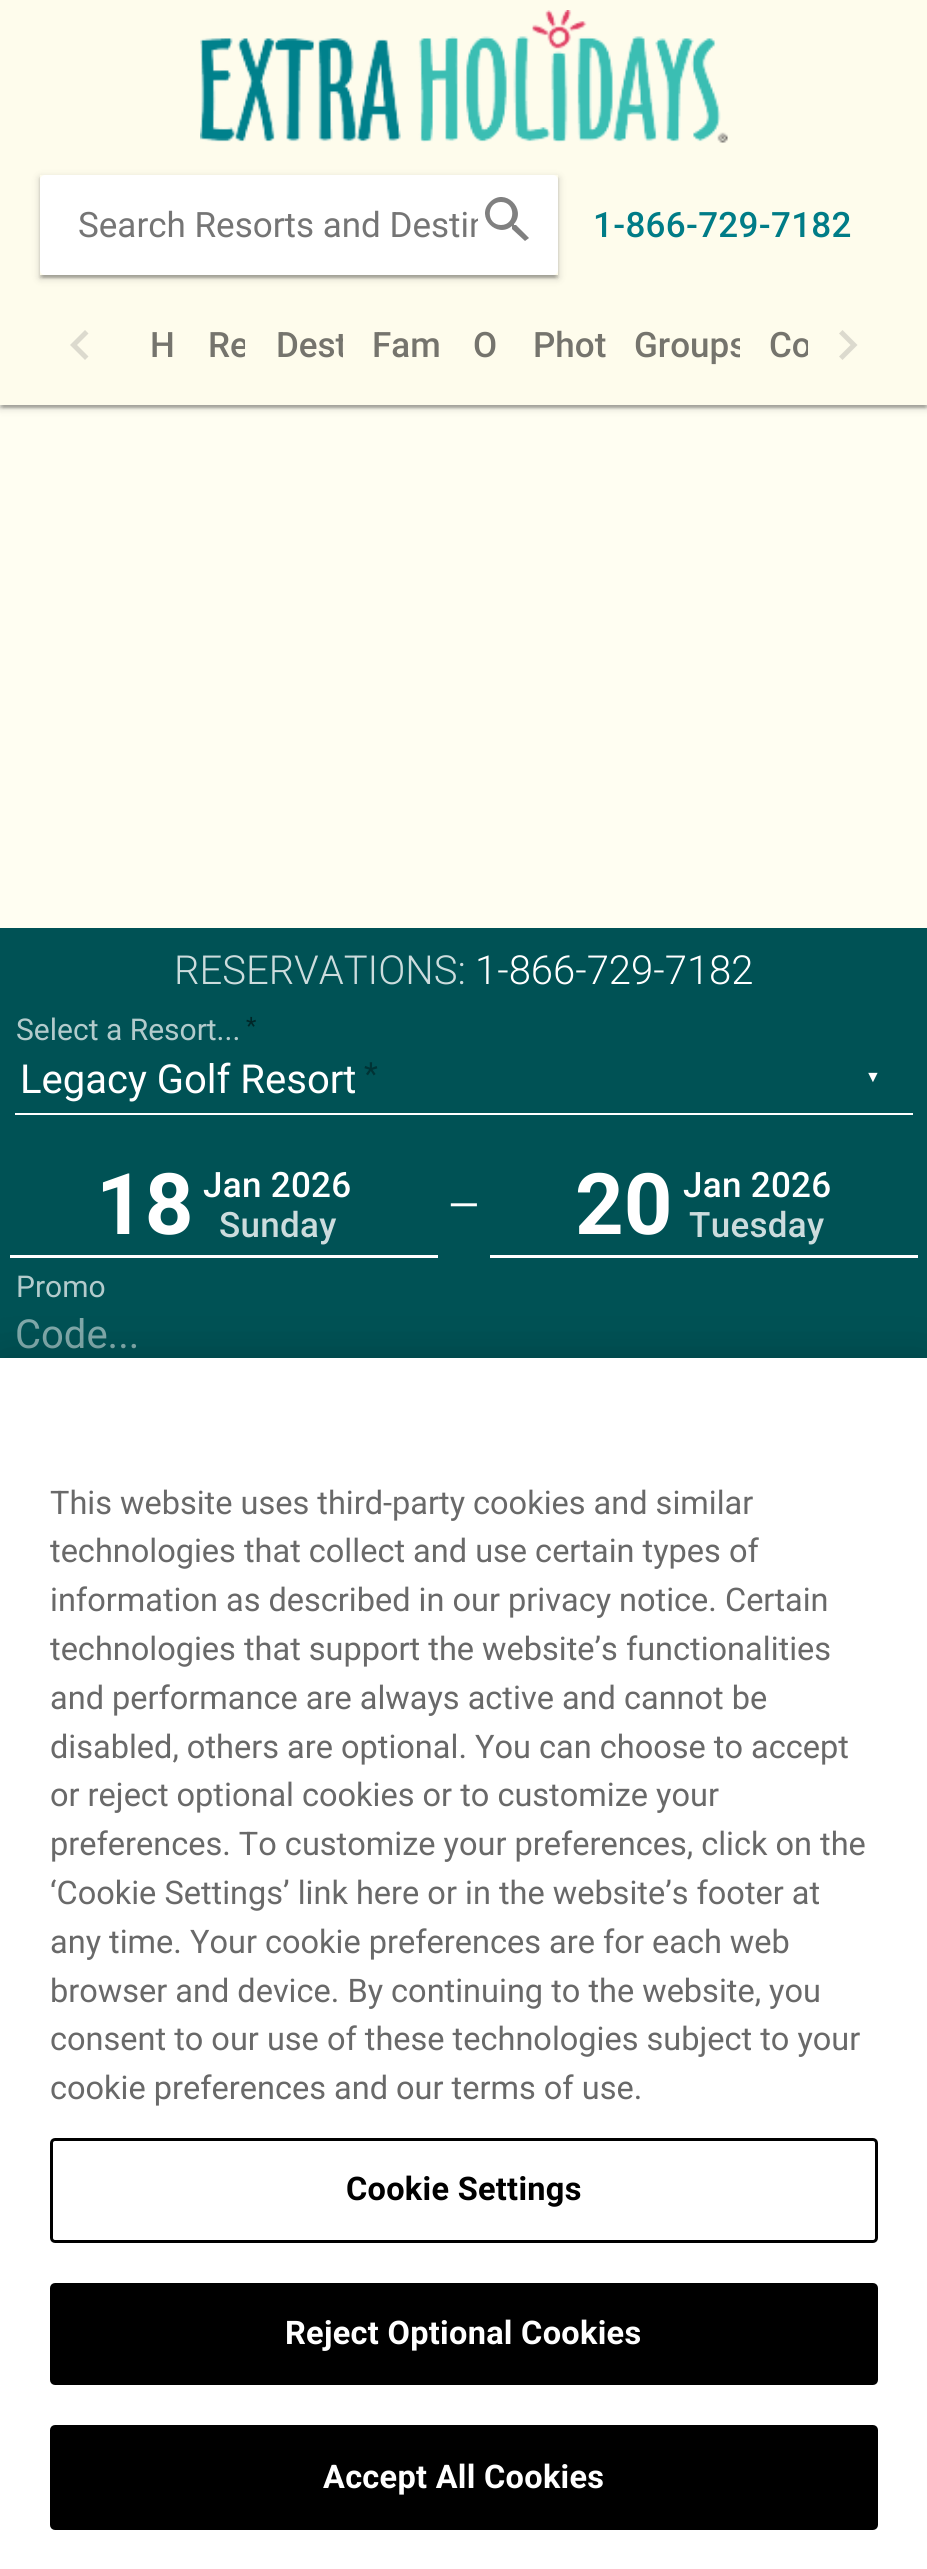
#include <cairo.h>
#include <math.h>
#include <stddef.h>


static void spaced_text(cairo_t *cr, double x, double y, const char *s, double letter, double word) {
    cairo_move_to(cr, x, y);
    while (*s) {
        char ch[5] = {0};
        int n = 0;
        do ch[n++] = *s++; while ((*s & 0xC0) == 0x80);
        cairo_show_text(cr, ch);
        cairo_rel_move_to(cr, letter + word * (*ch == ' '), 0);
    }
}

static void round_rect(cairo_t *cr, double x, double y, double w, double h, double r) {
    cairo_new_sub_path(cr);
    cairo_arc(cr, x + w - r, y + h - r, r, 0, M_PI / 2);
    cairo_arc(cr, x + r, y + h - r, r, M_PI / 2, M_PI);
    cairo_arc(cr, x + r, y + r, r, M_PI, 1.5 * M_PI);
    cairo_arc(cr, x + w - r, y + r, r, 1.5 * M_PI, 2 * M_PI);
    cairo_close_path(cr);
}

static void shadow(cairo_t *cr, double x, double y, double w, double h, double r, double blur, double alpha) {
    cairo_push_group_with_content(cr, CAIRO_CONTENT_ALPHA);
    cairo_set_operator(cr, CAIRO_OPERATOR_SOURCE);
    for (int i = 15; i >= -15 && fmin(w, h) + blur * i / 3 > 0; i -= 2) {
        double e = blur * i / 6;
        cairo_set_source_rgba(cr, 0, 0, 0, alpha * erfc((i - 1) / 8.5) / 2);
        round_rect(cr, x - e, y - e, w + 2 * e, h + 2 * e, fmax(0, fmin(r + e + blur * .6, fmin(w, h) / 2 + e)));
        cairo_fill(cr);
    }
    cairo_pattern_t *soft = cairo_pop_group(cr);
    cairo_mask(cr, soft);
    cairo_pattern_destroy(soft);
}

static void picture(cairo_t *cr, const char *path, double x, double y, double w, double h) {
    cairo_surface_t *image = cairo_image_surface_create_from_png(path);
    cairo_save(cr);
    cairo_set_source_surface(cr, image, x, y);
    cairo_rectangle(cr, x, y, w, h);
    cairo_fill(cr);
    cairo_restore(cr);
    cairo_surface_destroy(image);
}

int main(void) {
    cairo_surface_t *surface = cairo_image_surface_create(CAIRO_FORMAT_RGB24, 927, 2569);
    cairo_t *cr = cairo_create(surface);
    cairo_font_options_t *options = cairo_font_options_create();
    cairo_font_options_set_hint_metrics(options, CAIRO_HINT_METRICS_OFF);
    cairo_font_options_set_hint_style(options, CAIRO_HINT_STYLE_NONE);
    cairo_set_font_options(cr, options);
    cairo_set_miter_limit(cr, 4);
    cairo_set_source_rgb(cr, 1, 0.996, 0.949);
    cairo_paint(cr);
    cairo_set_source_rgb(cr, 0, 0, 0);
    shadow(cr, 3, 8, 922, 400, 0, 1, 0.12);
    shadow(cr, 0, 3, 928, 405, 0, 1, 0.14);
    shadow(cr, 0, 3, 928, 405, 0, 4, 0.2);
    cairo_set_source_rgb(cr, 0.996, 0.988, 0.925);
    cairo_rectangle(cr, 0, 0, 927, 405);
    cairo_fill(cr);
    picture(cr, "img1.png", 200, 10, 528, 133);
    cairo_set_source_rgb(cr, 1, 1, 1);
    round_rect(cr, 40, 175, 518, 100, 5);
    cairo_fill(cr);
    cairo_save(cr);
    cairo_rectangle(cr, 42, 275, 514, 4);
    cairo_clip(cr);
    cairo_set_source_rgb(cr, 0, 0, 0);
    shadow(cr, 43, 183, 512, 95, 0, 1, 0.12);
    cairo_restore(cr);
    cairo_save(cr);
    cairo_set_fill_rule(cr, CAIRO_FILL_RULE_EVEN_ODD);
    cairo_new_path(cr);
    cairo_move_to(cr, 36, 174);
    cairo_line_to(cr, 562, 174);
    cairo_line_to(cr, 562, 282);
    cairo_line_to(cr, 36, 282);
    cairo_close_path(cr);
    cairo_move_to(cr, 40, 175);
    cairo_line_to(cr, 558, 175);
    cairo_line_to(cr, 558, 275);
    cairo_line_to(cr, 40, 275);
    cairo_close_path(cr);
    cairo_clip(cr);
    cairo_set_source_rgb(cr, 0, 0, 0);
    shadow(cr, 40, 178, 518, 100, 0, 1, 0.14);
    cairo_restore(cr);
    cairo_save(cr);
    cairo_set_fill_rule(cr, CAIRO_FILL_RULE_EVEN_ODD);
    cairo_new_path(cr);
    cairo_move_to(cr, 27, 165);
    cairo_line_to(cr, 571, 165);
    cairo_line_to(cr, 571, 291);
    cairo_line_to(cr, 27, 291);
    cairo_close_path(cr);
    cairo_move_to(cr, 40, 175);
    cairo_line_to(cr, 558, 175);
    cairo_line_to(cr, 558, 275);
    cairo_line_to(cr, 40, 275);
    cairo_close_path(cr);
    cairo_clip(cr);
    cairo_set_source_rgb(cr, 0, 0, 0);
    shadow(cr, 40, 178, 518, 100, 0, 4, 0.2);
    cairo_restore(cr);
    cairo_select_font_face(cr, "Roboto", CAIRO_FONT_SLANT_NORMAL, CAIRO_FONT_WEIGHT_NORMAL);
    cairo_set_font_size(cr, 35);
    cairo_set_source_rgb(cr, 0.459, 0.459, 0.459);
    cairo_move_to(cr, 78, 237);
    cairo_show_text(cr, "Search Resorts and Destin");
    cairo_set_source_rgb(cr, 1, 1, 1);
    cairo_rectangle(cr, 478, 218, 8, 19);
    cairo_fill(cr);
    cairo_set_source_rgb(cr, 0.502, 0.502, 0.502);
    cairo_new_path(cr);
    cairo_move_to(cr, 516, 225);
    cairo_line_to(cr, 514, 225);
    cairo_line_to(cr, 514, 224);
    cairo_curve_to(cr, 527, 209, 505, 187, 490, 202);
    cairo_curve_to(cr, 475, 217, 497, 239, 512, 226);
    cairo_line_to(cr, 512, 227);
    cairo_line_to(cr, 512, 229);
    cairo_line_to(cr, 525, 241);
    cairo_line_to(cr, 529, 238);
    cairo_close_path(cr);
    cairo_move_to(cr, 501, 225);
    cairo_curve_to(cr, 486, 225, 486, 202, 501, 202);
    cairo_curve_to(cr, 516, 202, 516, 225, 501, 225);
    cairo_close_path(cr);
    cairo_fill(cr);
    cairo_select_font_face(cr, "Roboto Medium", CAIRO_FONT_SLANT_NORMAL, CAIRO_FONT_WEIGHT_NORMAL);
    cairo_set_source_rgb(cr, 0, 0.486, 0.529);
    spaced_text(cr, 593, 237, "1-866-729-7182", 0.3, 0);
    cairo_set_source_rgb(cr, 0.863, 0.855, 0.808);
    cairo_new_path(cr);
    cairo_move_to(cr, 88.5, 333.5);
    cairo_line_to(cr, 85, 330);
    cairo_line_to(cr, 70, 345);
    cairo_line_to(cr, 85, 360);
    cairo_line_to(cr, 88.5, 356.5);
    cairo_line_to(cr, 77, 345);
    cairo_close_path(cr);
    cairo_fill(cr);
    cairo_set_source_rgb(cr, 0.459, 0.455, 0.427);
    cairo_move_to(cr, 150, 357);
    cairo_show_text(cr, "H");
    cairo_save(cr);
    cairo_rectangle(cr, 178, 285, 67, 120);
    cairo_clip(cr);
    cairo_move_to(cr, 208, 357);
    cairo_show_text(cr, "Re");
    cairo_restore(cr);
    cairo_save(cr);
    cairo_rectangle(cr, 245, 285, 98, 120);
    cairo_clip(cr);
    cairo_move_to(cr, 276, 357);
    cairo_show_text(cr, "Dest");
    cairo_restore(cr);
    cairo_move_to(cr, 372, 357);
    cairo_show_text(cr, "Fam");
    cairo_move_to(cr, 473, 357);
    cairo_show_text(cr, "O");
    cairo_move_to(cr, 533, 357);
    cairo_show_text(cr, "Phot");
    cairo_save(cr);
    cairo_rectangle(cr, 605, 285, 135, 120);
    cairo_clip(cr);
    cairo_move_to(cr, 634, 357);
    cairo_show_text(cr, "Groups");
    cairo_restore(cr);
    cairo_save(cr);
    cairo_rectangle(cr, 740, 285, 68, 120);
    cairo_clip(cr);
    cairo_move_to(cr, 769, 357);
    cairo_show_text(cr, "Co");
    cairo_restore(cr);
    cairo_set_source_rgb(cr, 0.863, 0.855, 0.808);
    cairo_new_path(cr);
    cairo_move_to(cr, 839, 356.5);
    cairo_line_to(cr, 842.5, 360);
    cairo_line_to(cr, 857.5, 345);
    cairo_line_to(cr, 842.5, 330);
    cairo_line_to(cr, 839, 333.5);
    cairo_line_to(cr, 850.5, 345);
    cairo_close_path(cr);
    cairo_fill(cr);
    cairo_set_source_rgb(cr, 0, 0.322, 0.333);
    cairo_rectangle(cr, 0, 928, 927, 430);
    cairo_fill(cr);
    cairo_select_font_face(cr, "Roboto Light", CAIRO_FONT_SLANT_NORMAL, CAIRO_FONT_WEIGHT_NORMAL);
    cairo_set_font_size(cr, 40);
    cairo_set_source_rgb(cr, 0.8, 0.863, 0.867);
    cairo_move_to(cr, 174, 984);
    cairo_show_text(cr, "RESERVATIONS:");
    cairo_set_source_rgb(cr, 1, 1, 1);
    cairo_move_to(cr, 475, 984);
    cairo_show_text(cr, "1-866-729-7182");
    cairo_select_font_face(cr, "Roboto", CAIRO_FONT_SLANT_NORMAL, CAIRO_FONT_WEIGHT_NORMAL);
    cairo_set_font_size(cr, 30);
    cairo_set_source_rgb(cr, 0.702, 0.796, 0.8);
    cairo_move_to(cr, 16, 1040);
    cairo_show_text(cr, "Select a Resort...");
    cairo_set_font_size(cr, 24);
    cairo_set_source_rgb(cr, 0, 0.149, 0.153);
    cairo_move_to(cr, 246, 1034);
    cairo_show_text(cr, "*");
    cairo_set_source_rgb(cr, 1, 1, 1);
    cairo_rectangle(cr, 15, 1113, 898, 2);
    cairo_fill(cr);
    cairo_set_font_size(cr, 40);
    cairo_move_to(cr, 20, 1093);
    cairo_show_text(cr, "Legacy Golf Resort");
    cairo_set_font_size(cr, 32);
    cairo_set_source_rgb(cr, 0, 0.2, 0.208);
    cairo_move_to(cr, 364, 1085);
    cairo_show_text(cr, "*");
    cairo_select_font_face(cr, "Liberation Sans", CAIRO_FONT_SLANT_NORMAL, CAIRO_FONT_WEIGHT_NORMAL);
    cairo_set_font_size(cr, 16);
    cairo_set_source_rgb(cr, 1, 1, 1);
    spaced_text(cr, 865, 1082, "▼", 16, 0);
    cairo_rectangle(cr, 10, 1255, 428, 3);
    cairo_fill(cr);
    cairo_select_font_face(cr, "Roboto", CAIRO_FONT_SLANT_NORMAL, CAIRO_FONT_WEIGHT_BOLD);
    cairo_set_font_size(cr, 85);
    cairo_move_to(cr, 96, 1234);
    cairo_show_text(cr, "18");
    cairo_select_font_face(cr, "Roboto Medium", CAIRO_FONT_SLANT_NORMAL, CAIRO_FONT_WEIGHT_NORMAL);
    cairo_set_font_size(cr, 35);
    spaced_text(cr, 203, 1197, "Jan 2026", 0.3, 0);
    cairo_set_source_rgb(cr, 0.8, 0.863, 0.867);
    spaced_text(cr, 219, 1237, "Sunday", 0.3, 0);
    cairo_select_font_face(cr, "Roboto", CAIRO_FONT_SLANT_NORMAL, CAIRO_FONT_WEIGHT_NORMAL);
    cairo_set_font_size(cr, 40);
    cairo_set_source_rgb(cr, 1, 1, 1);
    cairo_move_to(cr, 448, 1219);
    cairo_show_text(cr, "—");
    cairo_rectangle(cr, 490, 1255, 428, 3);
    cairo_fill(cr);
    cairo_select_font_face(cr, "Roboto", CAIRO_FONT_SLANT_NORMAL, CAIRO_FONT_WEIGHT_BOLD);
    cairo_set_font_size(cr, 85);
    cairo_move_to(cr, 575, 1234);
    cairo_show_text(cr, "20");
    cairo_select_font_face(cr, "Roboto Medium", CAIRO_FONT_SLANT_NORMAL, CAIRO_FONT_WEIGHT_NORMAL);
    cairo_set_font_size(cr, 35);
    spaced_text(cr, 683, 1197, "Jan 2026", 0.3, 0);
    cairo_set_source_rgb(cr, 0.8, 0.863, 0.867);
    spaced_text(cr, 689, 1237, "Tuesday", 0.3, 0);
    cairo_select_font_face(cr, "Roboto", CAIRO_FONT_SLANT_NORMAL, CAIRO_FONT_WEIGHT_NORMAL);
    cairo_set_font_size(cr, 30);
    cairo_set_source_rgb(cr, 0.702, 0.796, 0.8);
    cairo_move_to(cr, 16, 1297);
    cairo_show_text(cr, "Promo");
    cairo_set_font_size(cr, 40);
    cairo_set_source_rgb(cr, 0.502, 0.663, 0.667);
    cairo_move_to(cr, 15, 1348);
    cairo_show_text(cr, "Code...");
    cairo_set_source_rgb(cr, 0, 0, 0);
    shadow(cr, 0, 1358, 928, 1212, 0, 22.5, 0.2);
    cairo_set_source_rgb(cr, 1, 1, 1);
    cairo_rectangle(cr, 0, 1358, 927, 1211);
    cairo_fill(cr);
    cairo_set_font_size(cr, 32.5);
    cairo_set_source_rgb(cr, 0.412, 0.412, 0.412);
    cairo_move_to(cr, 50, 1514);
    cairo_show_text(cr, "This website uses third-party cookies and similar");
    cairo_move_to(cr, 50, 1562);
    cairo_show_text(cr, "technologies that collect and use certain types of");
    cairo_move_to(cr, 50, 1611);
    cairo_show_text(cr, "information as described in our privacy notice. Certain");
    cairo_move_to(cr, 50, 1660);
    cairo_show_text(cr, "technologies that support the website’s functionalities");
    cairo_move_to(cr, 50, 1709);
    cairo_show_text(cr, "and performance are always active and cannot be");
    cairo_move_to(cr, 50, 1758);
    cairo_show_text(cr, "disabled, others are optional. You can choose to accept");
    cairo_move_to(cr, 50, 1806);
    cairo_show_text(cr, "or reject optional cookies or to customize your");
    cairo_move_to(cr, 50, 1855);
    cairo_show_text(cr, "preferences. To customize your preferences, click on the");
    cairo_move_to(cr, 50, 1904);
    cairo_show_text(cr, "‘Cookie Settings’ link here or in the website’s footer at");
    cairo_move_to(cr, 50, 1953);
    cairo_show_text(cr, "any time. Your cookie preferences are for each web");
    cairo_move_to(cr, 50, 2002);
    cairo_show_text(cr, "browser and device. By continuing to the website, you");
    cairo_move_to(cr, 50, 2050);
    cairo_show_text(cr, "consent to our use of these technologies subject to your");
    cairo_move_to(cr, 50, 2099);
    cairo_show_text(cr, "cookie preferences and our terms of use.");
    round_rect(cr, 51.5, 2139.5, 825, 102, 3.5);
    cairo_set_source_rgb(cr, 0, 0, 0);
    cairo_set_line_width(cr, 3);
    cairo_stroke(cr);
    cairo_select_font_face(cr, "Roboto", CAIRO_FONT_SLANT_NORMAL, CAIRO_FONT_WEIGHT_BOLD);
    spaced_text(cr, 346, 2200, "Cookie Settings", 0.3, 0);
    round_rect(cr, 51.5, 2284.5, 825, 99, 3.5);
    cairo_fill_preserve(cr);
    cairo_stroke(cr);
    cairo_set_source_rgb(cr, 1, 1, 1);
    spaced_text(cr, 285, 2344, "Reject Optional Cookies", 0.3, 0);
    cairo_set_source_rgb(cr, 0, 0, 0);
    round_rect(cr, 51.5, 2426.5, 825, 102, 3.5);
    cairo_fill_preserve(cr);
    cairo_stroke(cr);
    cairo_set_source_rgb(cr, 1, 1, 1);
    spaced_text(cr, 323, 2488, "Accept All Cookies", 0.3, 0);
    cairo_surface_write_to_png(surface, "page.png");
    cairo_font_options_destroy(options);
    cairo_destroy(cr);
    cairo_surface_destroy(surface);
    return 0;
}
